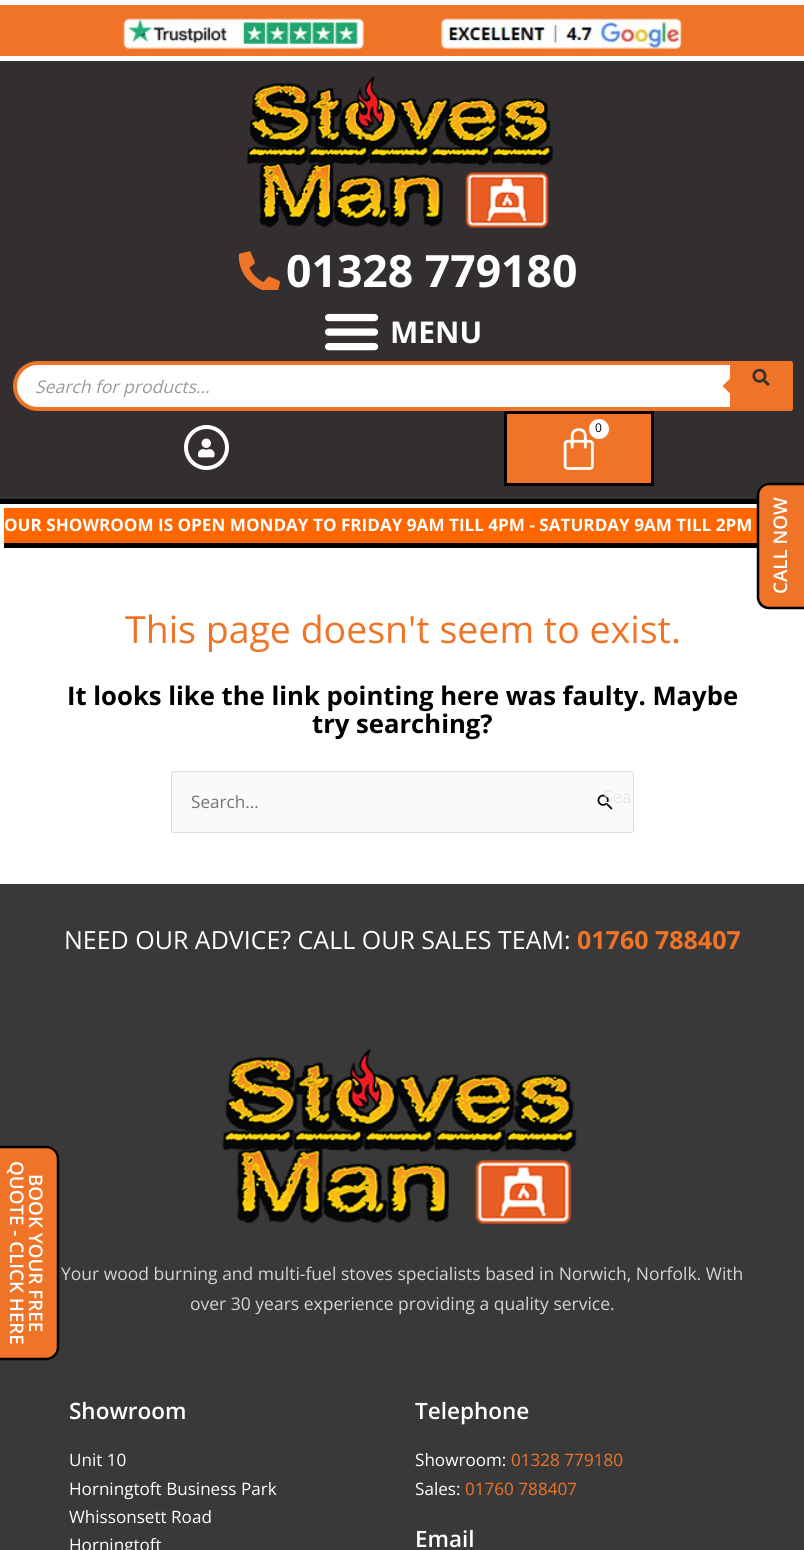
#include <cairo.h>
#include <math.h>
#include <stddef.h>


static void round_rect(cairo_t *cr, double x, double y, double w, double h, double r) {
    cairo_new_sub_path(cr);
    cairo_arc(cr, x + w - r, y + h - r, r, 0, M_PI / 2);
    cairo_arc(cr, x + r, y + h - r, r, M_PI / 2, M_PI);
    cairo_arc(cr, x + r, y + r, r, M_PI, 1.5 * M_PI);
    cairo_arc(cr, x + w - r, y + r, r, 1.5 * M_PI, 2 * M_PI);
    cairo_close_path(cr);
}

static void picture(cairo_t *cr, const char *path, double x, double y, double w, double h) {
    cairo_surface_t *image = cairo_image_surface_create_from_png(path);
    cairo_save(cr);
    cairo_set_source_surface(cr, image, x, y);
    cairo_rectangle(cr, x, y, w, h);
    cairo_fill(cr);
    cairo_restore(cr);
    cairo_surface_destroy(image);
}

int main(void) {
    cairo_surface_t *surface = cairo_image_surface_create(CAIRO_FORMAT_RGB24, 804, 1550);
    cairo_t *cr = cairo_create(surface);
    cairo_font_options_t *options = cairo_font_options_create();
    cairo_font_options_set_hint_metrics(options, CAIRO_HINT_METRICS_OFF);
    cairo_font_options_set_hint_style(options, CAIRO_HINT_STYLE_NONE);
    cairo_set_font_options(cr, options);
    cairo_set_miter_limit(cr, 4);
    cairo_set_source_rgb(cr, 1, 1, 1);
    cairo_paint(cr);
    cairo_set_source_rgb(cr, 0.941, 0.455, 0.153);
    cairo_rectangle(cr, 0, 5, 804, 51);
    cairo_fill(cr);
    picture(cr, "img1.png", 123, 18, 241, 31);
    picture(cr, "img2.png", 441, 18, 241, 31);
    cairo_set_source_rgb(cr, 0.2, 0.184, 0.188);
    cairo_rectangle(cr, 0, 61, 804, 438);
    cairo_fill(cr);
    cairo_set_source_rgb(cr, 0, 0, 0);
    cairo_rectangle(cr, 0, 499, 757, 5);
    cairo_fill(cr);
    picture(cr, "img3.png", 246, 76, 307, 152);
    picture(cr, "img4.png", 238, 251, 42, 39);
    cairo_select_font_face(cr, "Open Sans", CAIRO_FONT_SLANT_NORMAL, CAIRO_FONT_WEIGHT_BOLD);
    cairo_set_font_size(cr, 44.5);
    cairo_set_source_rgb(cr, 1, 1, 1);
    cairo_move_to(cr, 286, 287);
    cairo_show_text(cr, "01328 779180");
    picture(cr, "img5.png", 325, 313, 54, 38);
    cairo_set_font_size(cr, 30);
    cairo_move_to(cr, 390, 343);
    cairo_show_text(cr, "MENU");
    round_rect(cr, 15, 363, 776, 46, 23);
    cairo_fill_preserve(cr);
    cairo_set_source_rgb(cr, 0.941, 0.455, 0.153);
    cairo_set_line_width(cr, 4);
    cairo_stroke(cr);
    cairo_select_font_face(cr, "Open Sans", CAIRO_FONT_SLANT_ITALIC, CAIRO_FONT_WEIGHT_NORMAL);
    cairo_set_font_size(cr, 17.5);
    cairo_set_source_rgb(cr, 0.6, 0.6, 0.6);
    cairo_move_to(cr, 35, 393);
    cairo_show_text(cr, "Search for products...");
    cairo_set_source_rgb(cr, 0.941, 0.455, 0.153);
    cairo_new_path(cr);
    cairo_move_to(cr, 730, 361);
    cairo_line_to(cr, 790.5, 361);
    cairo_curve_to(cr, 792, 361, 793, 362, 793, 363.5);
    cairo_line_to(cr, 793, 408.5);
    cairo_curve_to(cr, 793, 410, 792, 411, 790.5, 411);
    cairo_line_to(cr, 730, 411);
    cairo_close_path(cr);
    cairo_fill(cr);
    cairo_new_path(cr);
    cairo_move_to(cr, 732.5, 376);
    cairo_line_to(cr, 732.5, 396);
    cairo_line_to(cr, 722.5, 386);
    cairo_close_path(cr);
    cairo_fill(cr);
    picture(cr, "img6.png", 752, 368, 18, 18);
    cairo_arc(cr, 206.5, 447.5, 20.5, 0, 2 * M_PI);
    cairo_set_source_rgb(cr, 1, 1, 1);
    cairo_stroke(cr);
    picture(cr, "img7.png", 198, 438, 17, 20);
    cairo_set_source_rgb(cr, 0.941, 0.455, 0.153);
    cairo_rectangle(cr, 505.5, 412.5, 147, 72);
    cairo_fill_preserve(cr);
    cairo_set_source_rgb(cr, 0, 0, 0);
    cairo_set_line_width(cr, 3);
    cairo_stroke(cr);
    picture(cr, "img8.png", 563, 428, 31, 42);
    cairo_set_source_rgb(cr, 1, 1, 1);
    cairo_arc(cr, 599, 429, 10, 0, 2 * M_PI);
    cairo_fill(cr);
    cairo_select_font_face(cr, "Open Sans", CAIRO_FONT_SLANT_NORMAL, CAIRO_FONT_WEIGHT_NORMAL);
    cairo_set_font_size(cr, 12);
    cairo_set_source_rgb(cr, 0, 0, 0);
    cairo_move_to(cr, 595, 432);
    cairo_show_text(cr, "0");
    cairo_rectangle(cr, 4, 543, 753, 5);
    cairo_fill(cr);
    cairo_set_source_rgb(cr, 1, 0.4, 0);
    cairo_rectangle(cr, 4, 508, 753, 35);
    cairo_fill(cr);
    cairo_select_font_face(cr, "Open Sans", CAIRO_FONT_SLANT_NORMAL, CAIRO_FONT_WEIGHT_BOLD);
    cairo_set_font_size(cr, 17.1);
    cairo_set_source_rgb(cr, 1, 1, 1);
    cairo_move_to(cr, 4, 531);
    cairo_show_text(cr, "OUR SHOWROOM IS OPEN MONDAY TO FRIDAY 9AM TILL 4PM - SATURDAY 9AM TILL 2PM");
    cairo_set_source_rgb(cr, 0.941, 0.455, 0.153);
    cairo_new_path(cr);
    cairo_move_to(cr, 757, 597);
    cairo_line_to(cr, 757, 495);
    cairo_curve_to(cr, 757, 488, 762, 483, 769, 483);
    cairo_line_to(cr, 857, 483);
    cairo_line_to(cr, 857, 609);
    cairo_line_to(cr, 769, 609);
    cairo_curve_to(cr, 762, 609, 757, 604, 757, 597);
    cairo_close_path(cr);
    cairo_fill(cr);
    cairo_new_path(cr);
    cairo_move_to(cr, 758, 597);
    cairo_line_to(cr, 758, 495);
    cairo_curve_to(cr, 758, 489, 763, 484, 769, 484);
    cairo_line_to(cr, 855.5, 484);
    cairo_line_to(cr, 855.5, 608);
    cairo_line_to(cr, 769, 608);
    cairo_curve_to(cr, 763, 608, 758, 603, 758, 597);
    cairo_close_path(cr);
    cairo_set_source_rgb(cr, 0, 0, 0);
    cairo_set_line_width(cr, 2.5);
    cairo_stroke(cr);
    cairo_select_font_face(cr, "Open Sans SemiBold", CAIRO_FONT_SLANT_NORMAL, CAIRO_FONT_WEIGHT_NORMAL);
    cairo_set_font_size(cr, 18.75);
    cairo_set_source_rgb(cr, 1, 1, 1);
    cairo_save(cr);
    cairo_translate(cr, 787, 594);
    cairo_rotate(cr, -90 * M_PI / 180);
    cairo_move_to(cr, 0, 0);
    cairo_show_text(cr, "CALL NOW");
    cairo_restore(cr);
    cairo_set_source_rgb(cr, 0.224, 0.224, 0.224);
    cairo_rectangle(cr, 0, 884, 804, 666);
    cairo_fill(cr);
    picture(cr, "img9.png", 222, 1048, 355, 176);
    cairo_select_font_face(cr, "Open Sans", CAIRO_FONT_SLANT_NORMAL, CAIRO_FONT_WEIGHT_NORMAL);
    cairo_set_font_size(cr, 17.5);
    cairo_set_source_rgb(cr, 0.835, 0.835, 0.835);
    cairo_move_to(cr, 61, 1280);
    cairo_show_text(cr, "Your wood burning and multi-fuel stoves specialists based in Norwich, Norfolk. With");
    cairo_move_to(cr, 190, 1310);
    cairo_show_text(cr, "over 30 years experience providing a quality service.");
    cairo_set_source_rgb(cr, 0.941, 0.455, 0.153);
    cairo_new_path(cr);
    cairo_move_to(cr, 59, 1158);
    cairo_line_to(cr, 59, 1348);
    cairo_curve_to(cr, 59, 1354, 53, 1360, 47, 1360);
    cairo_line_to(cr, -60, 1360);
    cairo_line_to(cr, -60, 1146);
    cairo_line_to(cr, 47, 1146);
    cairo_curve_to(cr, 53, 1146, 59, 1151, 59, 1158);
    cairo_close_path(cr);
    cairo_fill(cr);
    cairo_new_path(cr);
    cairo_move_to(cr, 58, 1158.5);
    cairo_line_to(cr, 58, 1347.5);
    cairo_curve_to(cr, 58, 1353.5, 52.5, 1359, 46.5, 1359);
    cairo_line_to(cr, -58.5, 1359);
    cairo_line_to(cr, -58.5, 1147);
    cairo_line_to(cr, 46.5, 1147);
    cairo_curve_to(cr, 52.5, 1147, 58, 1152, 58, 1158.5);
    cairo_close_path(cr);
    cairo_set_source_rgb(cr, 0, 0, 0);
    cairo_stroke(cr);
    cairo_select_font_face(cr, "Open Sans SemiBold", CAIRO_FONT_SLANT_NORMAL, CAIRO_FONT_WEIGHT_NORMAL);
    cairo_set_font_size(cr, 18.75);
    cairo_set_source_rgb(cr, 1, 1, 1);
    cairo_save(cr);
    cairo_translate(cr, 10, 1161);
    cairo_rotate(cr, 90 * M_PI / 180);
    cairo_move_to(cr, 0, 0);
    cairo_show_text(cr, "QUOTE - CLICK HERE");
    cairo_restore(cr);
    cairo_save(cr);
    cairo_translate(cr, 29, 1174);
    cairo_rotate(cr, 90 * M_PI / 180);
    cairo_move_to(cr, 0, 0);
    cairo_show_text(cr, "BOOK YOUR FREE");
    cairo_restore(cr);
    cairo_set_font_size(cr, 22.5);
    cairo_move_to(cr, 69, 1419);
    cairo_show_text(cr, "Showroom");
    cairo_select_font_face(cr, "Open Sans", CAIRO_FONT_SLANT_NORMAL, CAIRO_FONT_WEIGHT_NORMAL);
    cairo_set_font_size(cr, 17.1);
    cairo_move_to(cr, 69, 1466);
    cairo_show_text(cr, "Unit 10");
    cairo_move_to(cr, 69, 1495);
    cairo_show_text(cr, "Horningtoft Business Park");
    cairo_move_to(cr, 69, 1523);
    cairo_show_text(cr, "Whissonsett Road");
    cairo_move_to(cr, 69, 1551);
    cairo_show_text(cr, "Horningtoft");
    cairo_select_font_face(cr, "Open Sans SemiBold", CAIRO_FONT_SLANT_NORMAL, CAIRO_FONT_WEIGHT_NORMAL);
    cairo_set_font_size(cr, 22.5);
    cairo_move_to(cr, 415, 1419);
    cairo_show_text(cr, "Telephone");
    cairo_select_font_face(cr, "Open Sans", CAIRO_FONT_SLANT_NORMAL, CAIRO_FONT_WEIGHT_NORMAL);
    cairo_set_font_size(cr, 17.1);
    cairo_move_to(cr, 415, 1466);
    cairo_show_text(cr, "Showroom:");
    cairo_set_source_rgb(cr, 0.941, 0.455, 0.153);
    cairo_move_to(cr, 511, 1466);
    cairo_show_text(cr, "01328 779180");
    cairo_set_source_rgb(cr, 1, 1, 1);
    cairo_move_to(cr, 415, 1495);
    cairo_show_text(cr, "Sales:");
    cairo_set_source_rgb(cr, 0.941, 0.455, 0.153);
    cairo_move_to(cr, 465, 1495);
    cairo_show_text(cr, "01760 788407");
    cairo_select_font_face(cr, "Open Sans SemiBold", CAIRO_FONT_SLANT_NORMAL, CAIRO_FONT_WEIGHT_NORMAL);
    cairo_set_font_size(cr, 22.5);
    cairo_set_source_rgb(cr, 1, 1, 1);
    cairo_move_to(cr, 415, 1547);
    cairo_show_text(cr, "Email");
    cairo_select_font_face(cr, "Open Sans", CAIRO_FONT_SLANT_NORMAL, CAIRO_FONT_WEIGHT_NORMAL);
    cairo_set_font_size(cr, 25);
    cairo_move_to(cr, 64, 949);
    cairo_show_text(cr, "NEED OUR ADVICE? CALL OUR SALES TEAM:");
    cairo_select_font_face(cr, "Open Sans", CAIRO_FONT_SLANT_NORMAL, CAIRO_FONT_WEIGHT_BOLD);
    cairo_set_source_rgb(cr, 0.941, 0.455, 0.153);
    cairo_move_to(cr, 577, 949);
    cairo_show_text(cr, "01760 788407");
    cairo_select_font_face(cr, "Open Sans", CAIRO_FONT_SLANT_NORMAL, CAIRO_FONT_WEIGHT_NORMAL);
    cairo_set_font_size(cr, 37.5);
    cairo_move_to(cr, 125, 643);
    cairo_show_text(cr, "This page doesn't seem to exist.");
    cairo_select_font_face(cr, "Open Sans", CAIRO_FONT_SLANT_NORMAL, CAIRO_FONT_WEIGHT_BOLD);
    cairo_set_font_size(cr, 25.65);
    cairo_set_source_rgb(cr, 0, 0, 0);
    cairo_move_to(cr, 67, 705);
    cairo_show_text(cr, "It looks like the link pointing here was faulty. Maybe");
    cairo_move_to(cr, 312, 733);
    cairo_show_text(cr, "try searching?");
    cairo_set_source_rgb(cr, 0.98, 0.98, 0.98);
    round_rect(cr, 171.5, 771.5, 462, 61, 2);
    cairo_fill_preserve(cr);
    cairo_set_source_rgb(cr, 0.867, 0.867, 0.867);
    cairo_set_line_width(cr, 1);
    cairo_stroke(cr);
    picture(cr, "img10.png", 597, 794, 16, 16);
    cairo_select_font_face(cr, "Open Sans", CAIRO_FONT_SLANT_NORMAL, CAIRO_FONT_WEIGHT_NORMAL);
    cairo_set_font_size(cr, 17.1);
    cairo_set_source_rgb(cr, 0.906, 0.906, 0.906);
    cairo_move_to(cr, 603, 803);
    cairo_show_text(cr, "Sea");
    cairo_set_source_rgb(cr, 0.459, 0.459, 0.459);
    cairo_move_to(cr, 191, 808);
    cairo_show_text(cr, "Search...");
    cairo_surface_write_to_png(surface, "page.png");
    cairo_font_options_destroy(options);
    cairo_destroy(cr);
    cairo_surface_destroy(surface);
    return 0;
}
